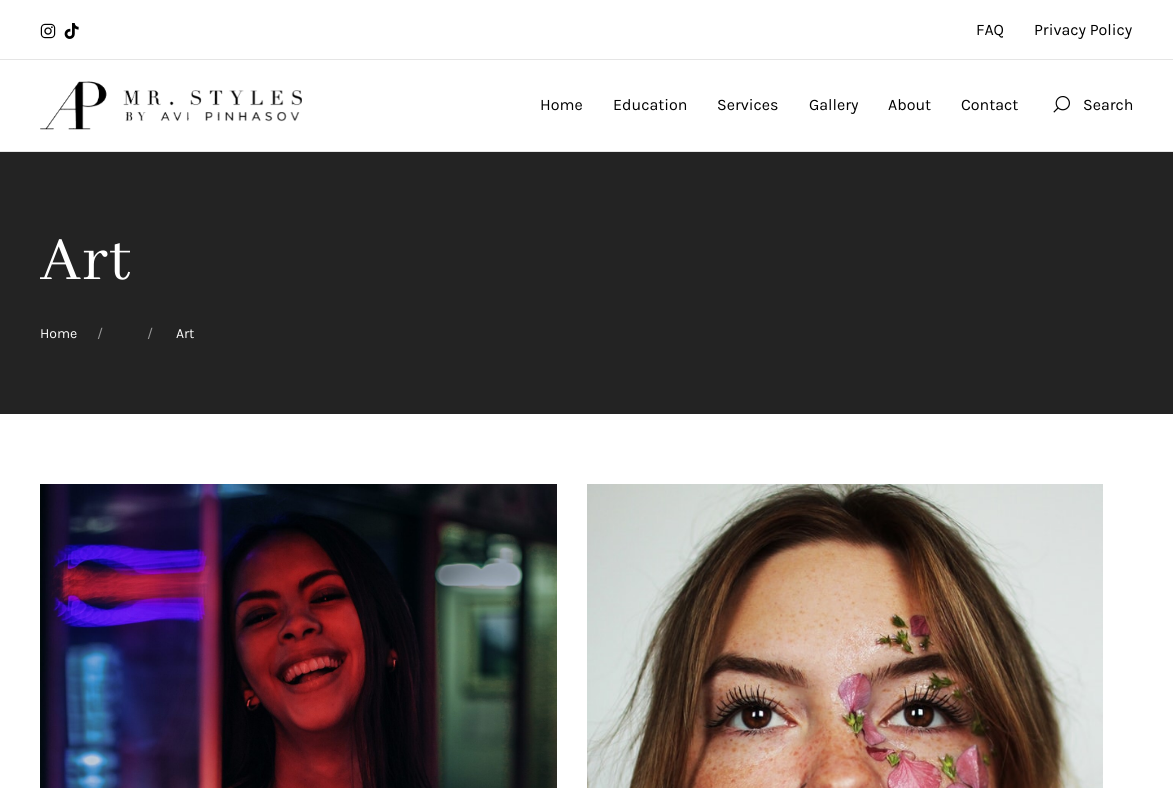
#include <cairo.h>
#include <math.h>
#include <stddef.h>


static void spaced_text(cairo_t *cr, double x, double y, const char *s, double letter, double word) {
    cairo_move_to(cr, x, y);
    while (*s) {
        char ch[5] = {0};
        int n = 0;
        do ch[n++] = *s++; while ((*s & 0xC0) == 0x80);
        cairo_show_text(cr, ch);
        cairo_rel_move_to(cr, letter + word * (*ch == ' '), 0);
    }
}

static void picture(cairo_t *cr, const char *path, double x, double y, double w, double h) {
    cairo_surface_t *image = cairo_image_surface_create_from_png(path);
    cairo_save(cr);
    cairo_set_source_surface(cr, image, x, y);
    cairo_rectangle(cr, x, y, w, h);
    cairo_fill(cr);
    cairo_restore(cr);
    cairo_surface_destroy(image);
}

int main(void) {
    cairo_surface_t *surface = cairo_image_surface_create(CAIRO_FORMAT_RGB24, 1173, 788);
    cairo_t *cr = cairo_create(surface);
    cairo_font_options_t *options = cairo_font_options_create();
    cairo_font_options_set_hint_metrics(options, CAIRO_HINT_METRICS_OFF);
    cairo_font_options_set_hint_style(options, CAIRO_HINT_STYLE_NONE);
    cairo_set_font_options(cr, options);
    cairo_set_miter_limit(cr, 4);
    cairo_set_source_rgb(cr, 1, 1, 1);
    cairo_paint(cr);
    cairo_set_source_rgb(cr, 0.898, 0.898, 0.898);
    cairo_rectangle(cr, 0, 59, 1173, 1);
    cairo_fill(cr);
    picture(cr, "img1.png", 40, 23, 16, 16);
    picture(cr, "img2.png", 64, 23, 15, 16);
    cairo_select_font_face(cr, "Karla", CAIRO_FONT_SLANT_NORMAL, CAIRO_FONT_WEIGHT_NORMAL);
    cairo_set_font_size(cr, 16);
    cairo_set_source_rgb(cr, 0, 0, 0);
    cairo_move_to(cr, 976, 35);
    cairo_show_text(cr, "FAQ");
    cairo_move_to(cr, 1034, 35);
    cairo_show_text(cr, "Privacy Policy");
    cairo_set_source_rgb(cr, 0.898, 0.898, 0.898);
    cairo_rectangle(cr, 0, 151, 1173, 1);
    cairo_fill(cr);
    picture(cr, "img3.png", 40, 81, 262, 49);
    cairo_set_source_rgb(cr, 0, 0, 0);
    cairo_move_to(cr, 540, 110);
    cairo_show_text(cr, "Home");
    cairo_move_to(cr, 613, 110);
    cairo_show_text(cr, "Education");
    cairo_move_to(cr, 717, 110);
    cairo_show_text(cr, "Services");
    cairo_move_to(cr, 809, 110);
    cairo_show_text(cr, "Gallery");
    cairo_move_to(cr, 888, 110);
    cairo_show_text(cr, "About");
    cairo_move_to(cr, 961, 110);
    cairo_show_text(cr, "Contact");
    picture(cr, "img4.png", 1053, 96, 17, 17);
    cairo_move_to(cr, 1083, 110);
    cairo_show_text(cr, "Search");
    cairo_set_source_rgb(cr, 0.137, 0.137, 0.137);
    cairo_rectangle(cr, 0, 152, 1173, 262);
    cairo_fill(cr);
    cairo_select_font_face(cr, "Abhaya Libre", CAIRO_FONT_SLANT_NORMAL, CAIRO_FONT_WEIGHT_NORMAL);
    cairo_set_font_size(cr, 68);
    cairo_set_source_rgb(cr, 1, 1, 1);
    spaced_text(cr, 40, 279, "Art", 1, 0);
    cairo_select_font_face(cr, "Karla", CAIRO_FONT_SLANT_NORMAL, CAIRO_FONT_WEIGHT_NORMAL);
    cairo_set_font_size(cr, 14);
    cairo_move_to(cr, 40, 338);
    cairo_show_text(cr, "Home");
    cairo_set_source_rgb(cr, 0.6, 0.6, 0.6);
    cairo_move_to(cr, 97, 338);
    cairo_show_text(cr, "/");
    cairo_move_to(cr, 147, 338);
    cairo_show_text(cr, "/");
    cairo_set_source_rgb(cr, 1, 1, 1);
    cairo_move_to(cr, 176, 338);
    cairo_show_text(cr, "Art");
    picture(cr, "img5.png", 40, 484, 517, 304);
    picture(cr, "img6.png", 587, 484, 516, 304);
    cairo_surface_write_to_png(surface, "page.png");
    cairo_font_options_destroy(options);
    cairo_destroy(cr);
    cairo_surface_destroy(surface);
    return 0;
}
